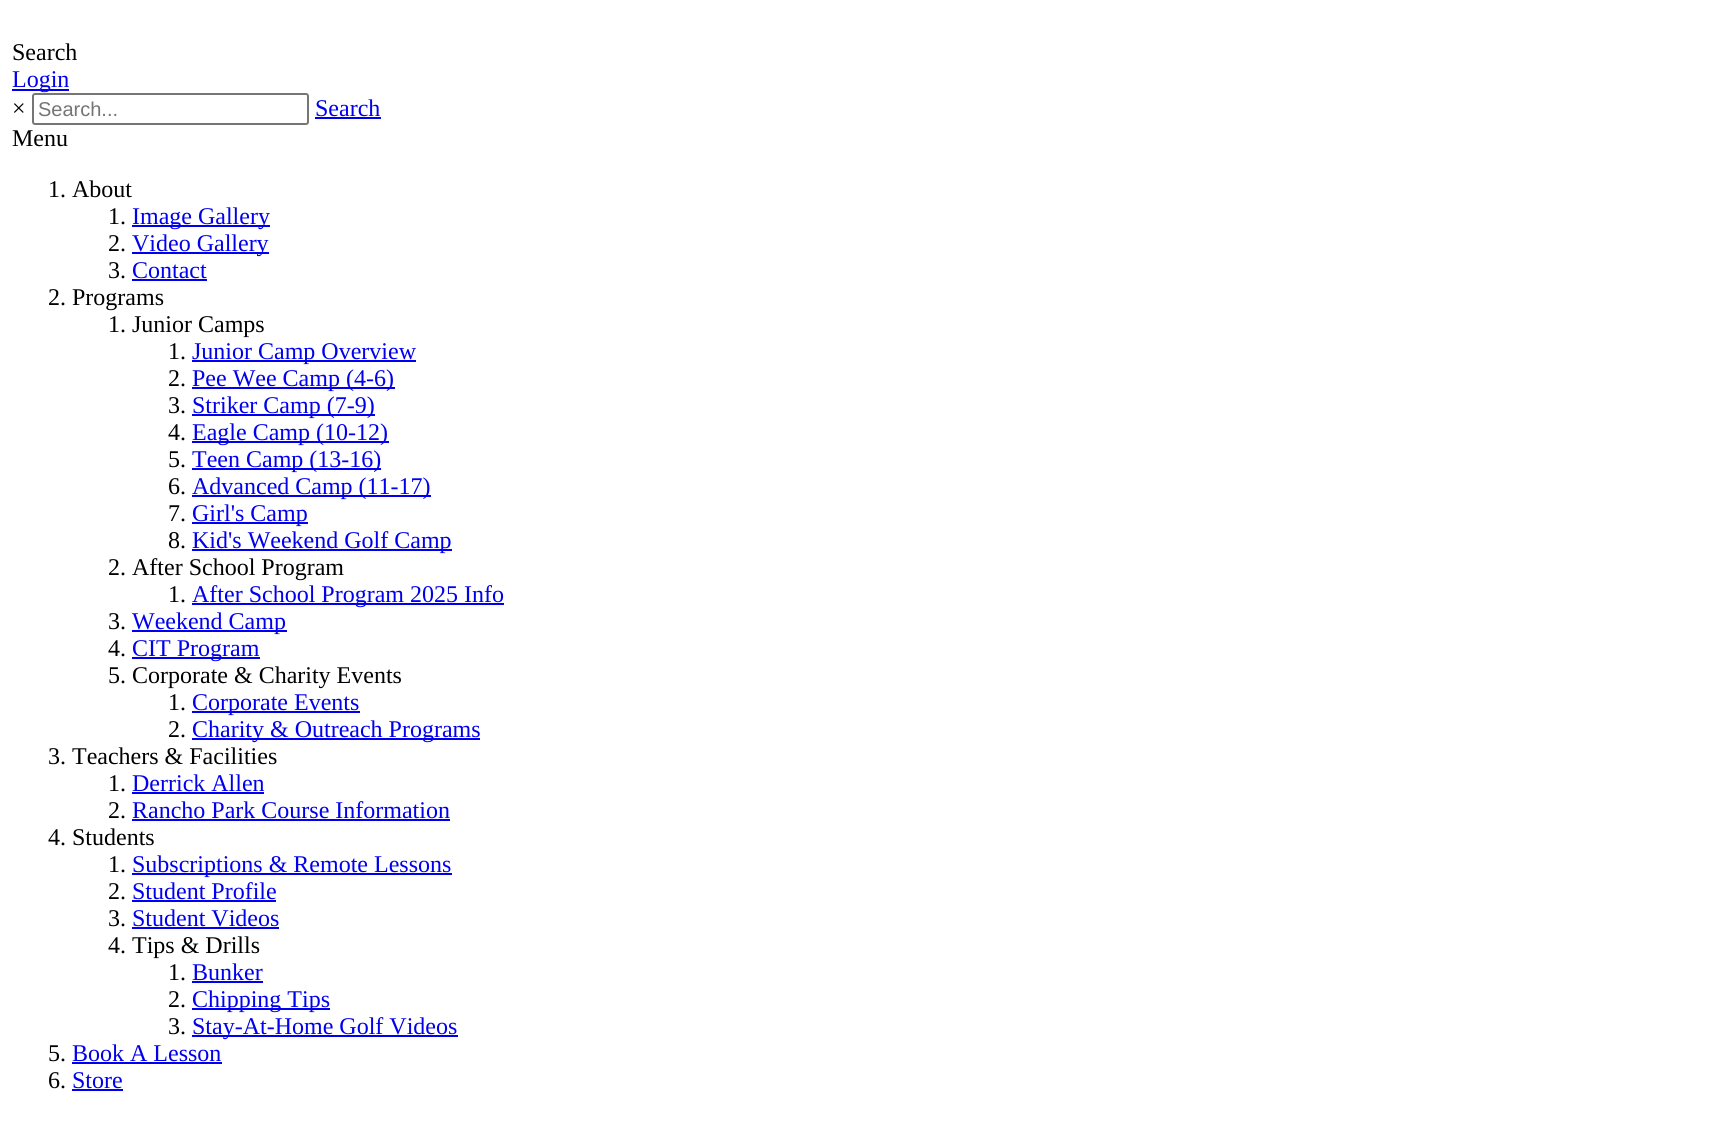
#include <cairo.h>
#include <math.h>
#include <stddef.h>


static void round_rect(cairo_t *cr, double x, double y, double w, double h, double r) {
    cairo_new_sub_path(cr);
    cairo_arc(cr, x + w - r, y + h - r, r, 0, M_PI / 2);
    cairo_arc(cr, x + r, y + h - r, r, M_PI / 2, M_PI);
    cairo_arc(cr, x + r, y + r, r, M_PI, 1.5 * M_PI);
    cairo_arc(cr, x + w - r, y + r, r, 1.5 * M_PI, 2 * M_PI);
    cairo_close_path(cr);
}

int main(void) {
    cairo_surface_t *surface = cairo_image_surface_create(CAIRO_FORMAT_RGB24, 1716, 1125);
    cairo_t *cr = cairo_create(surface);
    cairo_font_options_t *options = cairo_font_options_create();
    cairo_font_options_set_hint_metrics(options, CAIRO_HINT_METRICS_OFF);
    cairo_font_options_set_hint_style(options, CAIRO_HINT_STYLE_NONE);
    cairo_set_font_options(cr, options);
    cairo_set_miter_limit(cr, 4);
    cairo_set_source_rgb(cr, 1, 1, 1);
    cairo_paint(cr);
    cairo_select_font_face(cr, "Liberation Serif", CAIRO_FONT_SLANT_NORMAL, CAIRO_FONT_WEIGHT_NORMAL);
    cairo_set_font_size(cr, 24);
    cairo_set_source_rgb(cr, 0, 0, 0);
    cairo_move_to(cr, 12, 60);
    cairo_show_text(cr, "Search");
    cairo_set_source_rgb(cr, 0, 0, 0.933);
    cairo_rectangle(cr, 12, 89, 57, 2);
    cairo_fill(cr);
    cairo_move_to(cr, 12, 87);
    cairo_show_text(cr, "Login");
    cairo_set_source_rgb(cr, 0, 0, 0);
    cairo_move_to(cr, 12, 116);
    cairo_show_text(cr, "×");
    round_rect(cr, 33, 94, 275, 30, 2);
    cairo_set_source_rgb(cr, 0.463, 0.463, 0.463);
    cairo_stroke(cr);
    cairo_select_font_face(cr, "Liberation Sans", CAIRO_FONT_SLANT_NORMAL, CAIRO_FONT_WEIGHT_NORMAL);
    cairo_set_font_size(cr, 20);
    cairo_set_source_rgb(cr, 0.459, 0.459, 0.459);
    cairo_move_to(cr, 38, 116);
    cairo_show_text(cr, "Search...");
    cairo_select_font_face(cr, "Liberation Serif", CAIRO_FONT_SLANT_NORMAL, CAIRO_FONT_WEIGHT_NORMAL);
    cairo_set_font_size(cr, 24);
    cairo_set_source_rgb(cr, 0, 0, 0.933);
    cairo_move_to(cr, 315, 116);
    cairo_show_text(cr, "Search");
    cairo_rectangle(cr, 315, 117, 66, 2);
    cairo_fill(cr);
    cairo_set_source_rgb(cr, 0, 0, 0);
    cairo_move_to(cr, 12, 146);
    cairo_show_text(cr, "Menu");
    cairo_move_to(cr, 48, 197);
    cairo_show_text(cr, "1. About");
    cairo_move_to(cr, 108, 224);
    cairo_show_text(cr, "1.");
    cairo_set_source_rgb(cr, 0, 0, 0.933);
    cairo_rectangle(cr, 132, 225, 138, 2);
    cairo_fill(cr);
    cairo_move_to(cr, 132, 224);
    cairo_show_text(cr, "Image Gallery");
    cairo_set_source_rgb(cr, 0, 0, 0);
    cairo_move_to(cr, 108, 251);
    cairo_show_text(cr, "2.");
    cairo_set_source_rgb(cr, 0, 0, 0.933);
    cairo_rectangle(cr, 132, 252, 137, 2);
    cairo_fill(cr);
    cairo_move_to(cr, 132, 251);
    cairo_show_text(cr, "Video Gallery");
    cairo_set_source_rgb(cr, 0, 0, 0);
    cairo_move_to(cr, 108, 278);
    cairo_show_text(cr, "3.");
    cairo_set_source_rgb(cr, 0, 0, 0.933);
    cairo_move_to(cr, 132, 278);
    cairo_show_text(cr, "Contact");
    cairo_rectangle(cr, 132, 279, 75, 2);
    cairo_fill(cr);
    cairo_set_source_rgb(cr, 0, 0, 0);
    cairo_move_to(cr, 48, 305);
    cairo_show_text(cr, "2. Programs");
    cairo_move_to(cr, 108, 332);
    cairo_show_text(cr, "1. Junior Camps");
    cairo_move_to(cr, 168, 359);
    cairo_show_text(cr, "1.");
    cairo_set_source_rgb(cr, 0, 0, 0.933);
    cairo_rectangle(cr, 192, 360, 224, 2);
    cairo_fill(cr);
    cairo_move_to(cr, 192, 359);
    cairo_show_text(cr, "Junior Camp Overview");
    cairo_set_source_rgb(cr, 0, 0, 0);
    cairo_move_to(cr, 168, 386);
    cairo_show_text(cr, "2.");
    cairo_set_source_rgb(cr, 0, 0, 0.933);
    cairo_rectangle(cr, 192, 387, 203, 2);
    cairo_fill(cr);
    cairo_move_to(cr, 192, 386);
    cairo_show_text(cr, "Pee Wee Camp (4-6)");
    cairo_set_source_rgb(cr, 0, 0, 0);
    cairo_move_to(cr, 168, 413);
    cairo_show_text(cr, "3.");
    cairo_set_source_rgb(cr, 0, 0, 0.933);
    cairo_rectangle(cr, 192, 414, 183, 2);
    cairo_fill(cr);
    cairo_move_to(cr, 192, 413);
    cairo_show_text(cr, "Striker Camp (7-9)");
    cairo_set_source_rgb(cr, 0, 0, 0);
    cairo_move_to(cr, 168, 440);
    cairo_show_text(cr, "4.");
    cairo_set_source_rgb(cr, 0, 0, 0.933);
    cairo_rectangle(cr, 192, 441, 197, 2);
    cairo_fill(cr);
    cairo_move_to(cr, 192, 440);
    cairo_show_text(cr, "Eagle Camp (10-12)");
    cairo_set_source_rgb(cr, 0, 0, 0);
    cairo_move_to(cr, 168, 467);
    cairo_show_text(cr, "5.");
    cairo_set_source_rgb(cr, 0, 0, 0.933);
    cairo_rectangle(cr, 192, 468, 189, 2);
    cairo_fill(cr);
    cairo_move_to(cr, 192, 467);
    cairo_show_text(cr, "Teen Camp (13-16)");
    cairo_set_source_rgb(cr, 0, 0, 0);
    cairo_move_to(cr, 168, 494);
    cairo_show_text(cr, "6.");
    cairo_set_source_rgb(cr, 0, 0, 0.933);
    cairo_rectangle(cr, 192, 495, 239, 2);
    cairo_fill(cr);
    cairo_move_to(cr, 192, 494);
    cairo_show_text(cr, "Advanced Camp (11-17)");
    cairo_set_source_rgb(cr, 0, 0, 0);
    cairo_move_to(cr, 168, 521);
    cairo_show_text(cr, "7.");
    cairo_set_source_rgb(cr, 0, 0, 0.933);
    cairo_rectangle(cr, 192, 522, 116, 2);
    cairo_fill(cr);
    cairo_move_to(cr, 192, 521);
    cairo_show_text(cr, "Girl's Camp");
    cairo_set_source_rgb(cr, 0, 0, 0);
    cairo_move_to(cr, 168, 548);
    cairo_show_text(cr, "8.");
    cairo_set_source_rgb(cr, 0, 0, 0.933);
    cairo_rectangle(cr, 192, 549, 260, 2);
    cairo_fill(cr);
    cairo_move_to(cr, 192, 548);
    cairo_show_text(cr, "Kid's Weekend Golf Camp");
    cairo_set_source_rgb(cr, 0, 0, 0);
    cairo_move_to(cr, 108, 575);
    cairo_show_text(cr, "2. After School Program");
    cairo_move_to(cr, 168, 602);
    cairo_show_text(cr, "1.");
    cairo_set_source_rgb(cr, 0, 0, 0.933);
    cairo_rectangle(cr, 192, 603, 312, 2);
    cairo_fill(cr);
    cairo_move_to(cr, 192, 602);
    cairo_show_text(cr, "After School Program 2025 Info");
    cairo_set_source_rgb(cr, 0, 0, 0);
    cairo_move_to(cr, 108, 629);
    cairo_show_text(cr, "3.");
    cairo_set_source_rgb(cr, 0, 0, 0.933);
    cairo_rectangle(cr, 132, 630, 155, 2);
    cairo_fill(cr);
    cairo_move_to(cr, 132, 629);
    cairo_show_text(cr, "Weekend Camp");
    cairo_set_source_rgb(cr, 0, 0, 0);
    cairo_move_to(cr, 108, 656);
    cairo_show_text(cr, "4.");
    cairo_set_source_rgb(cr, 0, 0, 0.933);
    cairo_rectangle(cr, 132, 657, 128, 2);
    cairo_fill(cr);
    cairo_move_to(cr, 132, 656);
    cairo_show_text(cr, "CIT Program");
    cairo_set_source_rgb(cr, 0, 0, 0);
    cairo_move_to(cr, 108, 683);
    cairo_show_text(cr, "5. Corporate & Charity Events");
    cairo_move_to(cr, 168, 710);
    cairo_show_text(cr, "1.");
    cairo_set_source_rgb(cr, 0, 0, 0.933);
    cairo_rectangle(cr, 192, 711, 168, 2);
    cairo_fill(cr);
    cairo_move_to(cr, 192, 710);
    cairo_show_text(cr, "Corporate Events");
    cairo_set_source_rgb(cr, 0, 0, 0);
    cairo_move_to(cr, 168, 737);
    cairo_show_text(cr, "2.");
    cairo_set_source_rgb(cr, 0, 0, 0.933);
    cairo_rectangle(cr, 192, 738, 288, 2);
    cairo_fill(cr);
    cairo_move_to(cr, 192, 737);
    cairo_show_text(cr, "Charity & Outreach Programs");
    cairo_set_source_rgb(cr, 0, 0, 0);
    cairo_move_to(cr, 48, 764);
    cairo_show_text(cr, "3. Teachers & Facilities");
    cairo_move_to(cr, 108, 791);
    cairo_show_text(cr, "1.");
    cairo_set_source_rgb(cr, 0, 0, 0.933);
    cairo_move_to(cr, 132, 791);
    cairo_show_text(cr, "Derrick Allen");
    cairo_rectangle(cr, 132, 792, 132, 2);
    cairo_fill(cr);
    cairo_set_source_rgb(cr, 0, 0, 0);
    cairo_move_to(cr, 108, 818);
    cairo_show_text(cr, "2.");
    cairo_set_source_rgb(cr, 0, 0, 0.933);
    cairo_move_to(cr, 132, 818);
    cairo_show_text(cr, "Rancho Park Course Information");
    cairo_rectangle(cr, 132, 819, 318, 2);
    cairo_fill(cr);
    cairo_set_source_rgb(cr, 0, 0, 0);
    cairo_move_to(cr, 48, 845);
    cairo_show_text(cr, "4. Students");
    cairo_move_to(cr, 108, 872);
    cairo_show_text(cr, "1.");
    cairo_set_source_rgb(cr, 0, 0, 0.933);
    cairo_rectangle(cr, 132, 873, 320, 2);
    cairo_fill(cr);
    cairo_move_to(cr, 132, 872);
    cairo_show_text(cr, "Subscriptions & Remote Lessons");
    cairo_set_source_rgb(cr, 0, 0, 0);
    cairo_move_to(cr, 108, 899);
    cairo_show_text(cr, "2.");
    cairo_set_source_rgb(cr, 0, 0, 0.933);
    cairo_move_to(cr, 132, 899);
    cairo_show_text(cr, "Student Profile");
    cairo_rectangle(cr, 132, 900, 144, 2);
    cairo_fill(cr);
    cairo_set_source_rgb(cr, 0, 0, 0);
    cairo_move_to(cr, 108, 926);
    cairo_show_text(cr, "3.");
    cairo_set_source_rgb(cr, 0, 0, 0.933);
    cairo_move_to(cr, 132, 926);
    cairo_show_text(cr, "Student Videos");
    cairo_rectangle(cr, 132, 927, 147, 2);
    cairo_fill(cr);
    cairo_set_source_rgb(cr, 0, 0, 0);
    cairo_move_to(cr, 108, 953);
    cairo_show_text(cr, "4. Tips & Drills");
    cairo_move_to(cr, 168, 980);
    cairo_show_text(cr, "1.");
    cairo_set_source_rgb(cr, 0, 0, 0.933);
    cairo_move_to(cr, 192, 980);
    cairo_show_text(cr, "Bunker");
    cairo_rectangle(cr, 192, 981, 71, 2);
    cairo_fill(cr);
    cairo_set_source_rgb(cr, 0, 0, 0);
    cairo_move_to(cr, 168, 1007);
    cairo_show_text(cr, "2.");
    cairo_set_source_rgb(cr, 0, 0, 0.933);
    cairo_rectangle(cr, 192, 1008, 138, 2);
    cairo_fill(cr);
    cairo_move_to(cr, 192, 1007);
    cairo_show_text(cr, "Chipping Tips");
    cairo_set_source_rgb(cr, 0, 0, 0);
    cairo_move_to(cr, 168, 1034);
    cairo_show_text(cr, "3.");
    cairo_set_source_rgb(cr, 0, 0, 0.933);
    cairo_rectangle(cr, 192, 1035, 266, 2);
    cairo_fill(cr);
    cairo_move_to(cr, 192, 1034);
    cairo_show_text(cr, "Stay-At-Home Golf Videos");
    cairo_set_source_rgb(cr, 0, 0, 0);
    cairo_move_to(cr, 48, 1061);
    cairo_show_text(cr, "5.");
    cairo_set_source_rgb(cr, 0, 0, 0.933);
    cairo_move_to(cr, 72, 1061);
    cairo_show_text(cr, "Book A Lesson");
    cairo_rectangle(cr, 72, 1062, 150, 2);
    cairo_fill(cr);
    cairo_set_source_rgb(cr, 0, 0, 0);
    cairo_move_to(cr, 48, 1088);
    cairo_show_text(cr, "6.");
    cairo_set_source_rgb(cr, 0, 0, 0.933);
    cairo_move_to(cr, 72, 1088);
    cairo_show_text(cr, "Store");
    cairo_rectangle(cr, 72, 1089, 51, 2);
    cairo_fill(cr);
    cairo_surface_write_to_png(surface, "page.png");
    cairo_font_options_destroy(options);
    cairo_destroy(cr);
    cairo_surface_destroy(surface);
    return 0;
}
